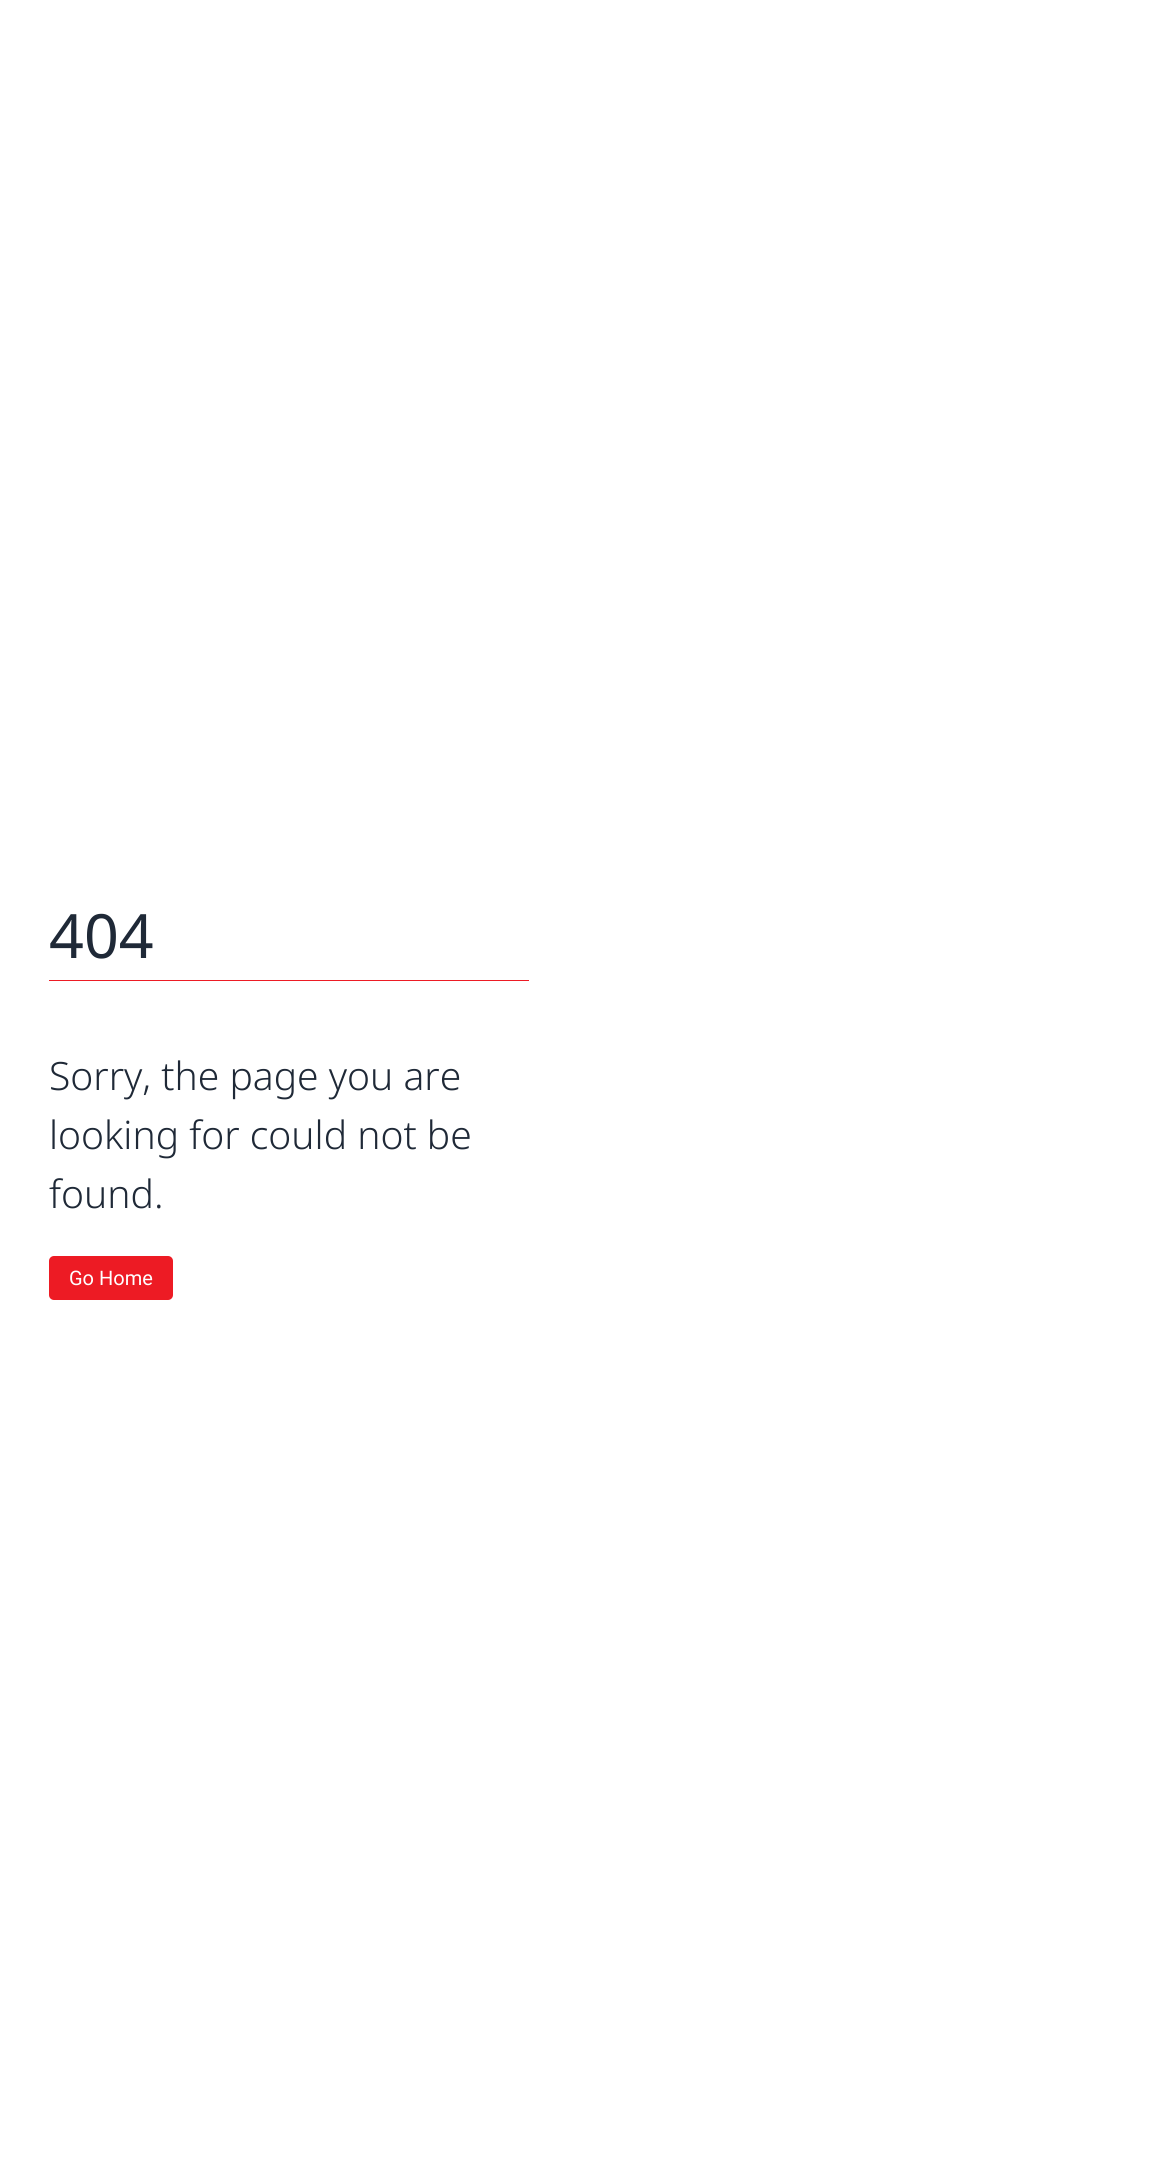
#include <cairo.h>
#include <math.h>
#include <stddef.h>


static void round_rect(cairo_t *cr, double x, double y, double w, double h, double r) {
    cairo_new_sub_path(cr);
    cairo_arc(cr, x + w - r, y + h - r, r, 0, M_PI / 2);
    cairo_arc(cr, x + r, y + h - r, r, M_PI / 2, M_PI);
    cairo_arc(cr, x + r, y + r, r, M_PI, 1.5 * M_PI);
    cairo_arc(cr, x + w - r, y + r, r, 1.5 * M_PI, 2 * M_PI);
    cairo_close_path(cr);
}

int main(void) {
    cairo_surface_t *surface = cairo_image_surface_create(CAIRO_FORMAT_RGB24, 1154, 2182);
    cairo_t *cr = cairo_create(surface);
    cairo_font_options_t *options = cairo_font_options_create();
    cairo_font_options_set_hint_metrics(options, CAIRO_HINT_METRICS_OFF);
    cairo_font_options_set_hint_style(options, CAIRO_HINT_STYLE_NONE);
    cairo_set_font_options(cr, options);
    cairo_set_miter_limit(cr, 4);
    cairo_set_source_rgb(cr, 1, 1, 1);
    cairo_paint(cr);
    cairo_set_source_rgb(cr, 0.929, 0.106, 0.141);
    cairo_rectangle(cr, 49, 980, 480, 1);
    cairo_fill(cr);
    cairo_select_font_face(cr, "Noto Sans", CAIRO_FONT_SLANT_NORMAL, CAIRO_FONT_WEIGHT_NORMAL);
    cairo_set_font_size(cr, 61);
    cairo_set_source_rgb(cr, 0.122, 0.161, 0.216);
    cairo_move_to(cr, 49, 958);
    cairo_show_text(cr, "404");
    cairo_select_font_face(cr, "Noto Sans Light", CAIRO_FONT_SLANT_NORMAL, CAIRO_FONT_WEIGHT_NORMAL);
    cairo_set_font_size(cr, 39);
    cairo_move_to(cr, 49, 1090);
    cairo_show_text(cr, "Sorry, the page you are");
    cairo_move_to(cr, 49, 1149);
    cairo_show_text(cr, "looking for could not be");
    cairo_move_to(cr, 49, 1208);
    cairo_show_text(cr, "found.");
    cairo_set_source_rgb(cr, 0.929, 0.106, 0.141);
    round_rect(cr, 49, 1256, 124, 44, 5);
    cairo_fill(cr);
    cairo_select_font_face(cr, "Roboto", CAIRO_FONT_SLANT_NORMAL, CAIRO_FONT_WEIGHT_NORMAL);
    cairo_set_font_size(cr, 20);
    cairo_set_source_rgb(cr, 1, 1, 1);
    cairo_move_to(cr, 69, 1285);
    cairo_show_text(cr, "Go Home");
    cairo_surface_write_to_png(surface, "page.png");
    cairo_font_options_destroy(options);
    cairo_destroy(cr);
    cairo_surface_destroy(surface);
    return 0;
}
